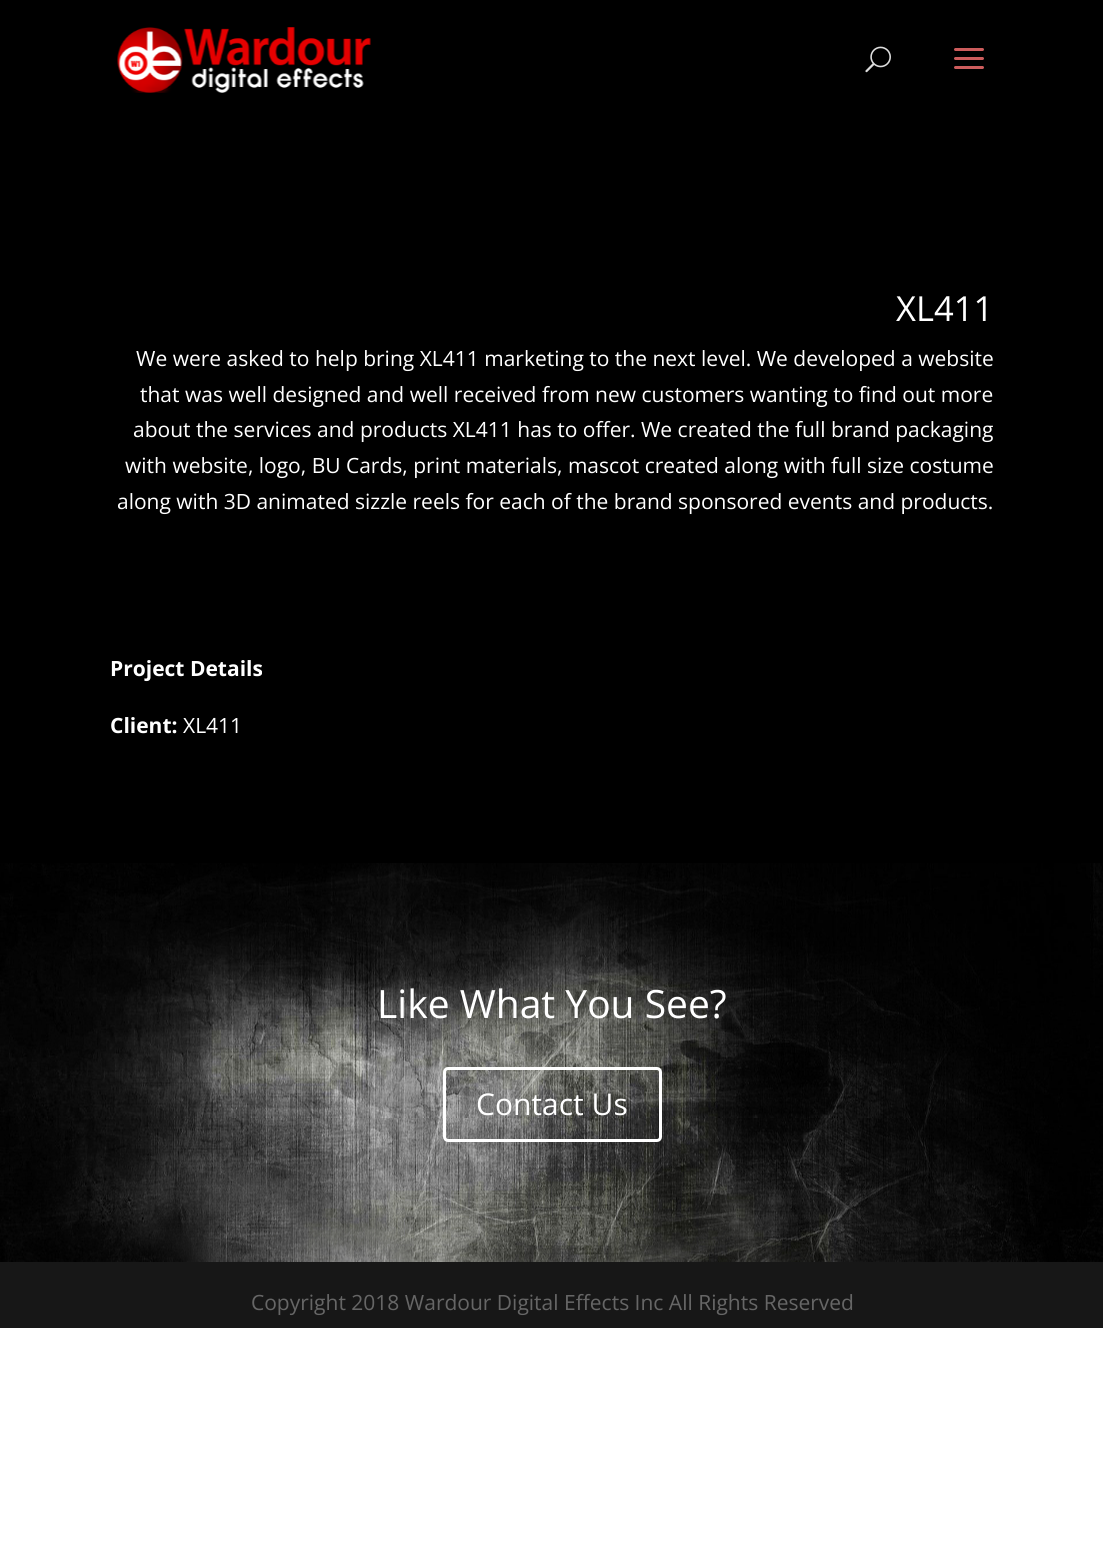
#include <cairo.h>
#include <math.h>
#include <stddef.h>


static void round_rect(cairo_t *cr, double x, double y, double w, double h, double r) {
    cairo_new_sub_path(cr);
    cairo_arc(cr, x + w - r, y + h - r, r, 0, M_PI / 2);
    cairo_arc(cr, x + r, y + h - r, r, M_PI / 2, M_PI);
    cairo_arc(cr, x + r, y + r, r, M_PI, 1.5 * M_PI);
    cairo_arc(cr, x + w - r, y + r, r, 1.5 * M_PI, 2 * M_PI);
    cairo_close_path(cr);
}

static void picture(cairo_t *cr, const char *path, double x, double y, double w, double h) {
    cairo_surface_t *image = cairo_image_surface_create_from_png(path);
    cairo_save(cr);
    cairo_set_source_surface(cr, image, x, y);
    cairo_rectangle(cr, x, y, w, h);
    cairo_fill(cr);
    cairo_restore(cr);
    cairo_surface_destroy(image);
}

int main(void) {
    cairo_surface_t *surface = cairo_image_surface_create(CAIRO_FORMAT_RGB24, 1103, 1567);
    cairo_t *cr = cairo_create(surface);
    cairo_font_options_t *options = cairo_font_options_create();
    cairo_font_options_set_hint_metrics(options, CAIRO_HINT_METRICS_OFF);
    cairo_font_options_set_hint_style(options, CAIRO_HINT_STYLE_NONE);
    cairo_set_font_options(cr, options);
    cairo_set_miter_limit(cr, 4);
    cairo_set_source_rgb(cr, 1, 1, 1);
    cairo_paint(cr);
    cairo_set_source_rgb(cr, 0, 0, 0);
    cairo_rectangle(cr, 0, 0, 1103, 863);
    cairo_fill(cr);
    picture(cr, "img1.png", 117, 27, 254, 66);
    picture(cr, "img2.png", 865, 46, 26, 27);
    picture(cr, "img3.png", 954, 48, 30, 21);
    cairo_select_font_face(cr, "Open Sans", CAIRO_FONT_SLANT_NORMAL, CAIRO_FONT_WEIGHT_NORMAL);
    cairo_set_font_size(cr, 34.5);
    cairo_set_source_rgb(cr, 1, 1, 1);
    cairo_move_to(cr, 896, 321);
    cairo_show_text(cr, "XL411");
    cairo_set_font_size(cr, 21);
    cairo_move_to(cr, 136, 366);
    cairo_show_text(cr, "We were asked to help bring XL411 marketing to the next level. We developed a website");
    cairo_move_to(cr, 140, 402);
    cairo_show_text(cr, "that was well designed and well received from new customers wanting to find out more");
    cairo_move_to(cr, 133, 437);
    cairo_show_text(cr, "about the services and products XL411 has to offer. We created the full brand packaging");
    cairo_move_to(cr, 125, 473);
    cairo_show_text(cr, "with website, logo, BU Cards, print materials, mascot created along with full size costume");
    cairo_move_to(cr, 117, 509);
    cairo_show_text(cr, "along with 3D animated sizzle reels for each of the brand sponsored events and products.");
    cairo_select_font_face(cr, "Open Sans", CAIRO_FONT_SLANT_NORMAL, CAIRO_FONT_WEIGHT_BOLD);
    cairo_move_to(cr, 110, 676);
    cairo_show_text(cr, "Project Details");
    cairo_move_to(cr, 110, 733);
    cairo_show_text(cr, "Client:");
    cairo_select_font_face(cr, "Open Sans", CAIRO_FONT_SLANT_NORMAL, CAIRO_FONT_WEIGHT_NORMAL);
    cairo_move_to(cr, 183, 733);
    cairo_show_text(cr, "XL411");
    picture(cr, "img4.png", 0, 863, 1103, 399);
    cairo_set_font_size(cr, 39);
    cairo_move_to(cr, 377, 1018);
    cairo_show_text(cr, "Like What You See?");
    round_rect(cr, 444.5, 1068.5, 216, 72, 3.5);
    cairo_set_line_width(cr, 3);
    cairo_stroke(cr);
    cairo_set_font_size(cr, 30);
    cairo_move_to(cr, 476, 1115);
    cairo_show_text(cr, "Contact Us");
    cairo_set_source_rgb(cr, 0.09, 0.09, 0.09);
    cairo_rectangle(cr, 0, 1262, 1103, 66);
    cairo_fill(cr);
    cairo_set_font_size(cr, 21);
    cairo_set_source_rgb(cr, 0.4, 0.4, 0.4);
    cairo_move_to(cr, 251, 1310);
    cairo_show_text(cr, "Copyright 2018 Wardour Digital Effects Inc All Rights Reserved");
    cairo_surface_write_to_png(surface, "page.png");
    cairo_font_options_destroy(options);
    cairo_destroy(cr);
    cairo_surface_destroy(surface);
    return 0;
}
